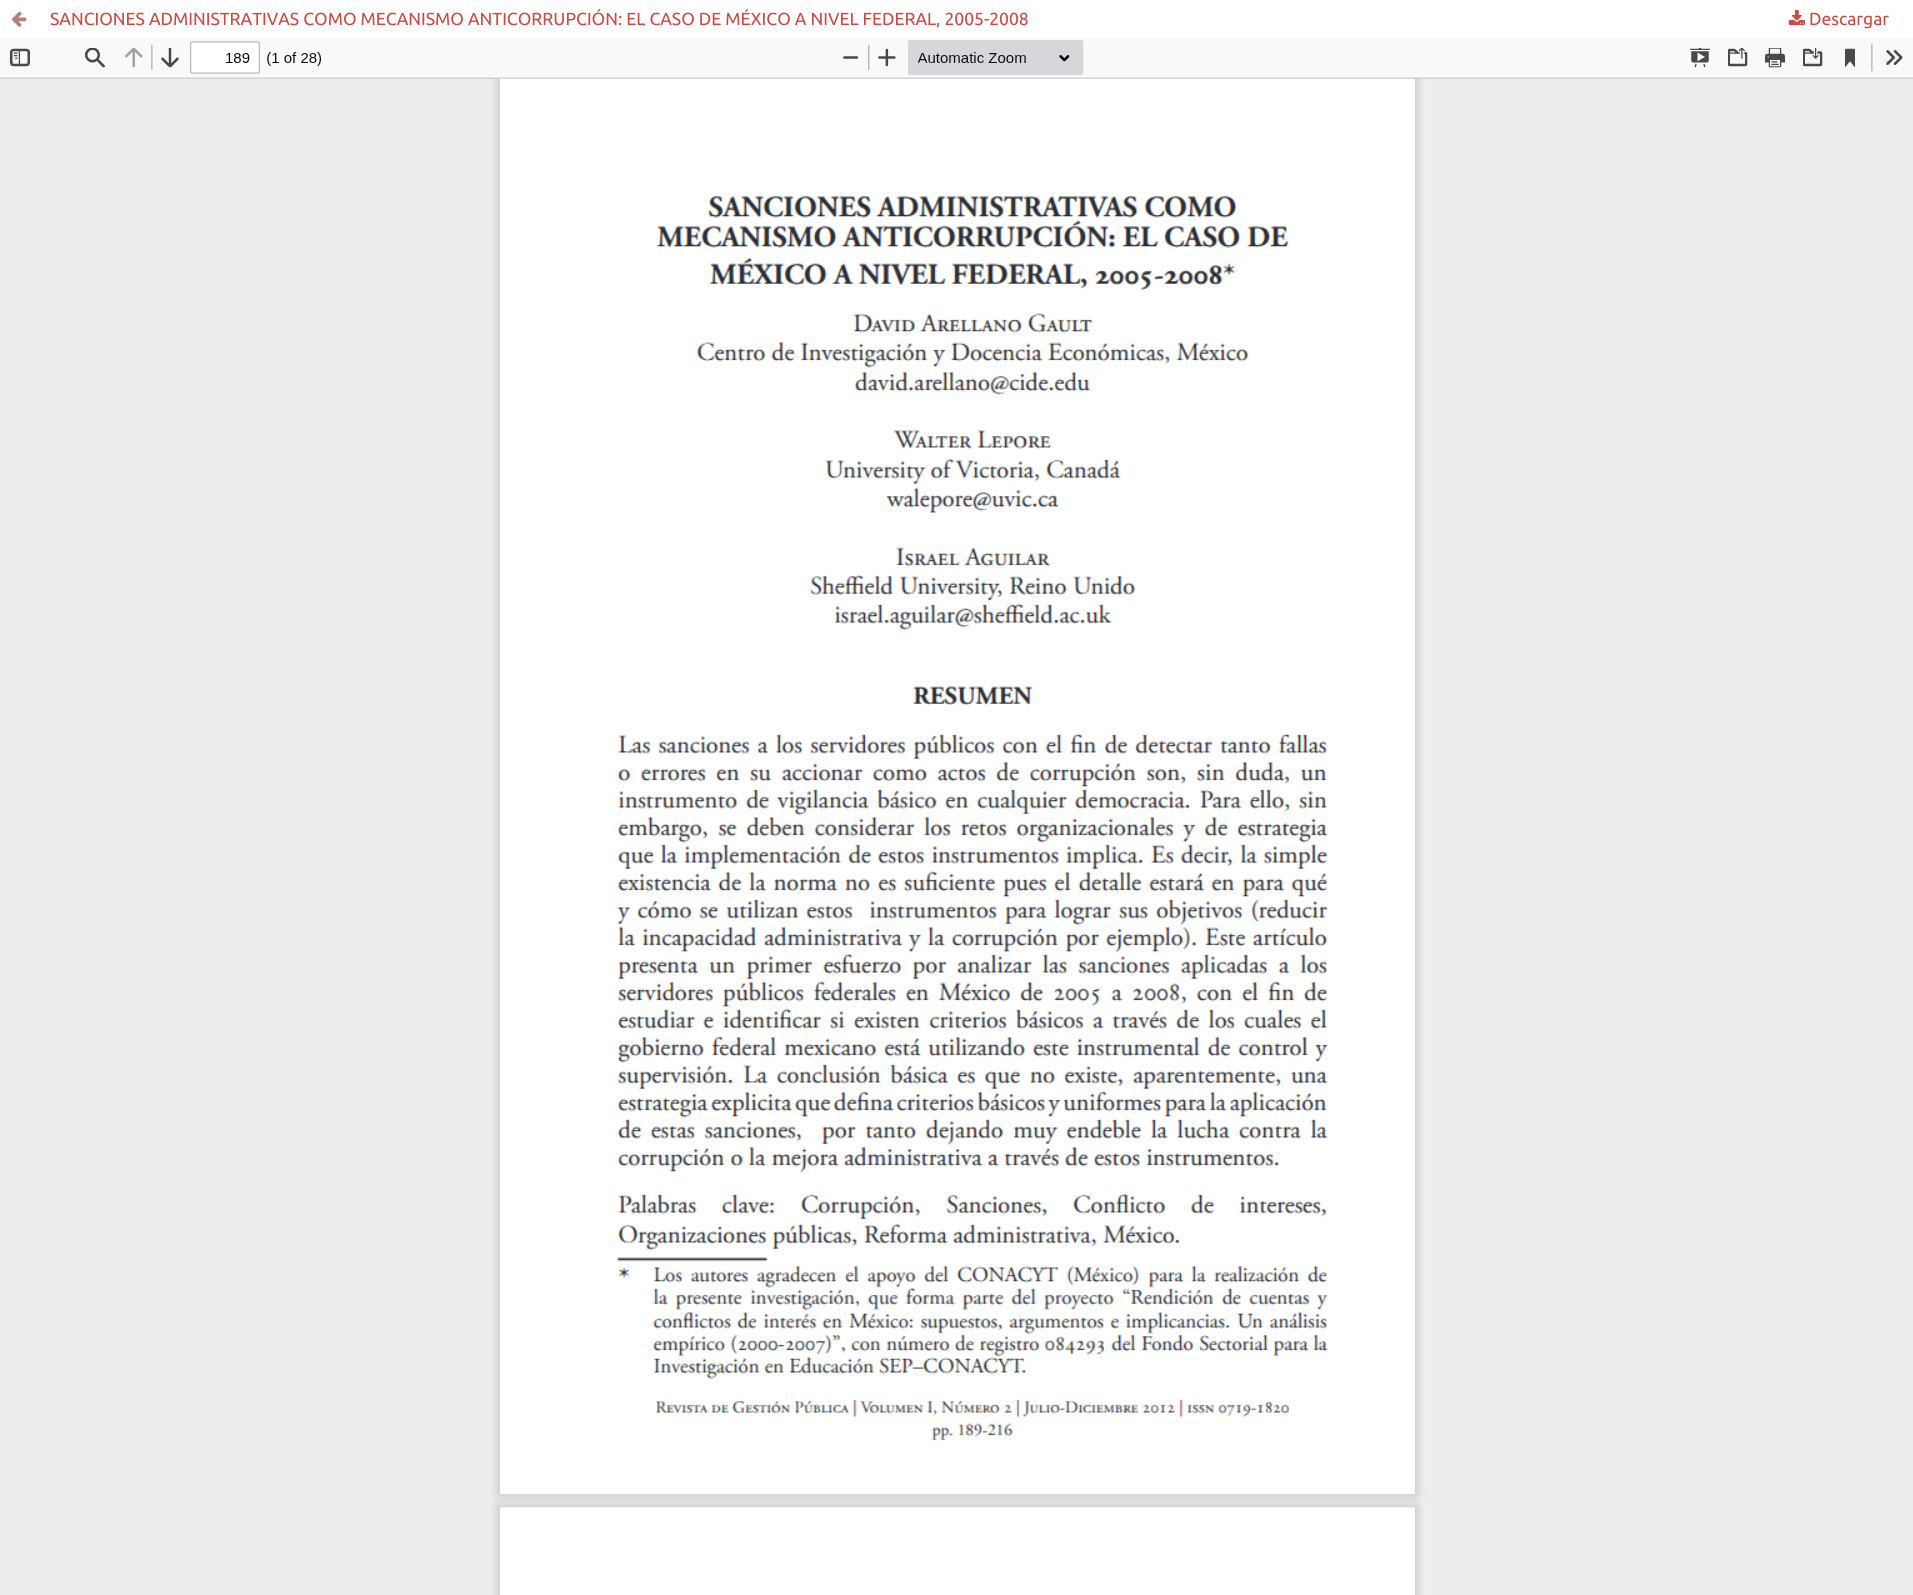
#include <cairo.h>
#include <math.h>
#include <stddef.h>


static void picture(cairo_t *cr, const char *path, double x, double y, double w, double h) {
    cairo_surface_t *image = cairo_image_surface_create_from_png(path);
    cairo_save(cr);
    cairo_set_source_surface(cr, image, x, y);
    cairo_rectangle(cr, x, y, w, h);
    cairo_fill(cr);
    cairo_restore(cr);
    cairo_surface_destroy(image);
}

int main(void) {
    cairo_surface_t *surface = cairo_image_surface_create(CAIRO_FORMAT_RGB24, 1913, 1595);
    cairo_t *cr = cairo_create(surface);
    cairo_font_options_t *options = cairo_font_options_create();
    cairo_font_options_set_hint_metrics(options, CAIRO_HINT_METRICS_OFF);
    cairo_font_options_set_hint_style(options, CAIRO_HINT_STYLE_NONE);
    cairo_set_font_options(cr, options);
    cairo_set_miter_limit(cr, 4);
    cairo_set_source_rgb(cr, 1, 1, 1);
    cairo_paint(cr);
    picture(cr, "img1.png", 11, 11, 16, 16);
    cairo_select_font_face(cr, "Ubuntu", CAIRO_FONT_SLANT_NORMAL, CAIRO_FONT_WEIGHT_NORMAL);
    cairo_set_font_size(cr, 17.5);
    cairo_set_source_rgb(cr, 0.784, 0.29, 0.267);
    cairo_move_to(cr, 50, 25);
    cairo_show_text(cr, "SANCIONES ADMINISTRATIVAS COMO MECANISMO ANTICORRUPCIÓN: EL CASO DE MÉXICO A NIVEL FEDERAL, 2005-2008");
    picture(cr, "img2.png", 1788, 10, 17, 15);
    cairo_move_to(cr, 1809, 25);
    cairo_show_text(cr, "Descargar");
    picture(cr, "img3.png", 0, 38, 1913, 1557);
    cairo_surface_write_to_png(surface, "page.png");
    cairo_font_options_destroy(options);
    cairo_destroy(cr);
    cairo_surface_destroy(surface);
    return 0;
}
